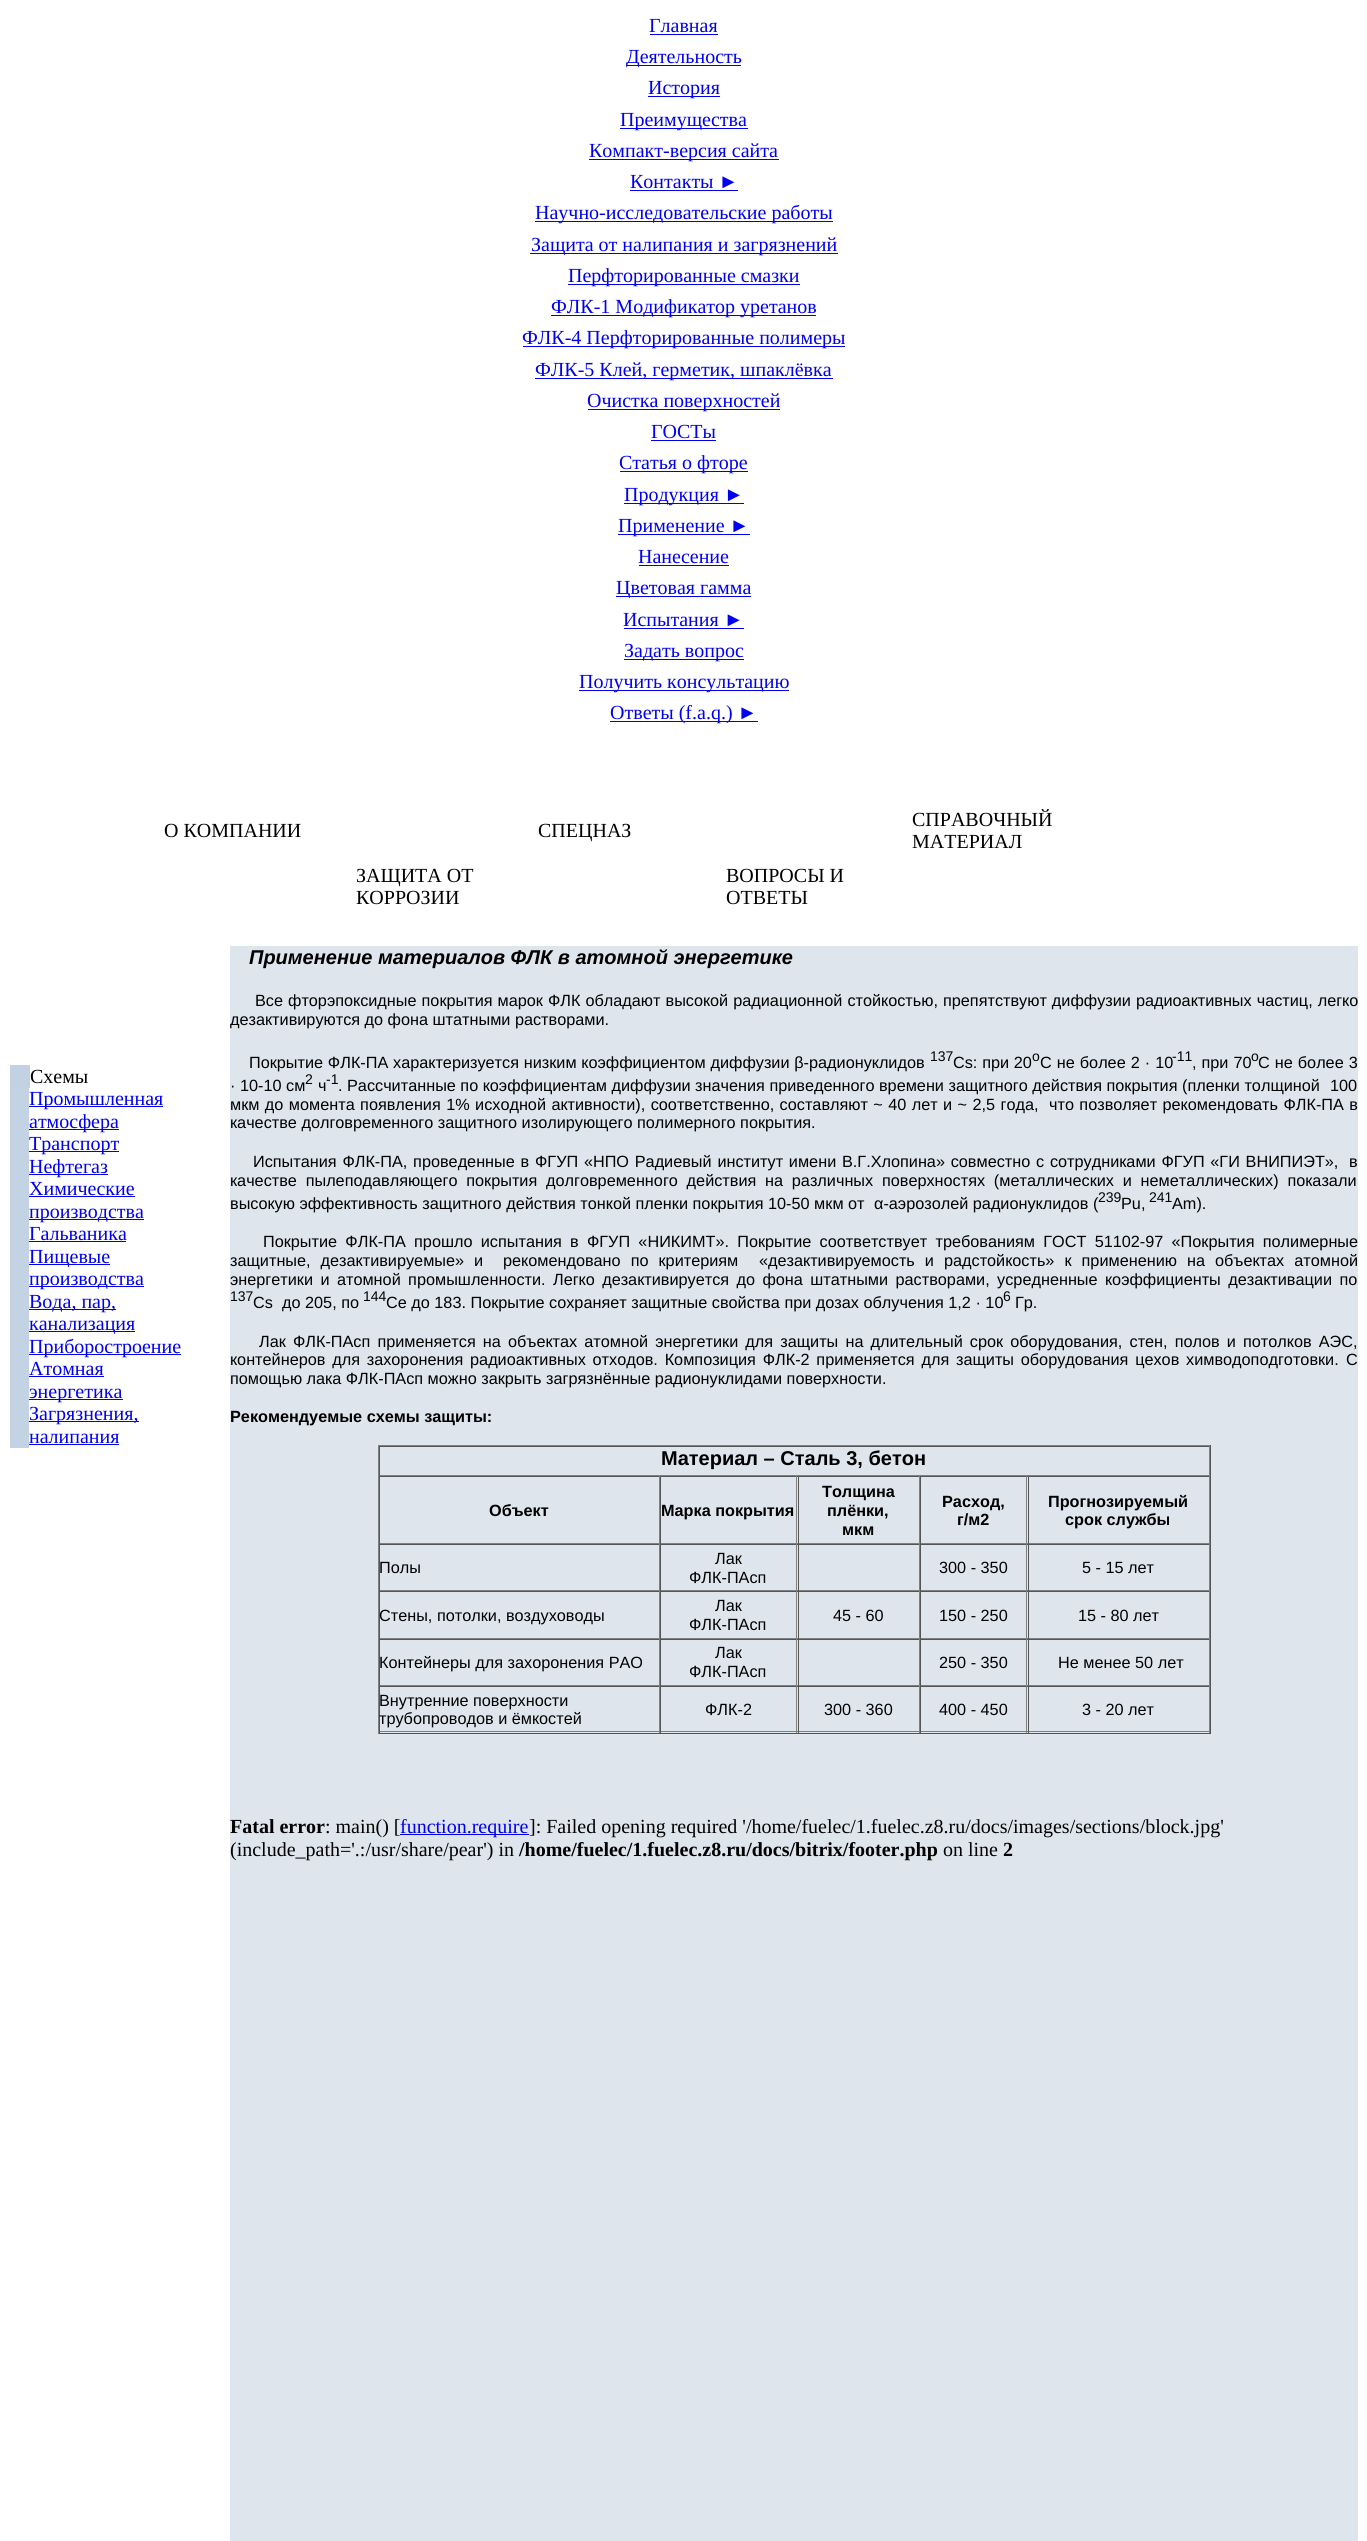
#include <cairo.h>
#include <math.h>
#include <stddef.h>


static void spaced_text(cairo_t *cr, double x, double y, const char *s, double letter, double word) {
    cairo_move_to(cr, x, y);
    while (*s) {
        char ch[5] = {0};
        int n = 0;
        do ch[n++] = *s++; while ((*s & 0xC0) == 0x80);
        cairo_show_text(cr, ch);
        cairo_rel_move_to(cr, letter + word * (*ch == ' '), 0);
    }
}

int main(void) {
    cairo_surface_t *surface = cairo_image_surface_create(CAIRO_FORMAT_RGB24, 1367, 2541);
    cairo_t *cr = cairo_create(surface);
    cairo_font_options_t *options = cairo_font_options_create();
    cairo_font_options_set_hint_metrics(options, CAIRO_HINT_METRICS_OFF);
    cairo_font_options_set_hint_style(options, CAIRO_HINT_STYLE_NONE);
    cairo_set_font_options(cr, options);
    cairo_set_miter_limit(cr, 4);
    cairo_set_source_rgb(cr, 1, 1, 1);
    cairo_paint(cr);
    cairo_select_font_face(cr, "Liberation Serif", CAIRO_FONT_SLANT_NORMAL, CAIRO_FONT_WEIGHT_NORMAL);
    cairo_set_font_size(cr, 20);
    cairo_set_source_rgb(cr, 0, 0, 0.933);
    cairo_move_to(cr, 649, 32);
    cairo_show_text(cr, "Главная");
    cairo_rectangle(cr, 650, 34, 68, 1);
    cairo_fill(cr);
    cairo_rectangle(cr, 626, 65, 115, 1);
    cairo_fill(cr);
    cairo_move_to(cr, 626, 63);
    cairo_show_text(cr, "Деятельность");
    cairo_rectangle(cr, 648, 96, 72, 1);
    cairo_fill(cr);
    cairo_move_to(cr, 648, 94);
    cairo_show_text(cr, "История");
    cairo_rectangle(cr, 620, 128, 128, 1);
    cairo_fill(cr);
    cairo_move_to(cr, 620, 126);
    cairo_show_text(cr, "Преимущества");
    cairo_rectangle(cr, 589, 159, 190, 1);
    cairo_fill(cr);
    cairo_move_to(cr, 589, 157);
    cairo_show_text(cr, "Компакт-версия сайта");
    cairo_move_to(cr, 630, 188);
    cairo_show_text(cr, "Контакты ►");
    cairo_rectangle(cr, 630, 190, 108, 1);
    cairo_fill(cr);
    cairo_rectangle(cr, 535, 221, 298, 1);
    cairo_fill(cr);
    cairo_move_to(cr, 535, 219);
    cairo_show_text(cr, "Научно-исследовательские работы");
    cairo_rectangle(cr, 530, 253, 308, 1);
    cairo_fill(cr);
    cairo_move_to(cr, 531, 251);
    cairo_show_text(cr, "Защита от налипания и загрязнений");
    cairo_rectangle(cr, 568, 284, 232, 1);
    cairo_fill(cr);
    cairo_move_to(cr, 568, 282);
    cairo_show_text(cr, "Перфторированные смазки");
    cairo_rectangle(cr, 551, 315, 265, 1);
    cairo_fill(cr);
    cairo_move_to(cr, 551, 313);
    cairo_show_text(cr, "ФЛК-1 Модификатор уретанов");
    cairo_rectangle(cr, 523, 346, 322, 1);
    cairo_fill(cr);
    cairo_move_to(cr, 522, 344);
    cairo_show_text(cr, "ФЛК-4 Перфторированные полимеры");
    cairo_rectangle(cr, 535, 378, 298, 1);
    cairo_fill(cr);
    cairo_move_to(cr, 535, 376);
    cairo_show_text(cr, "ФЛК-5 Клей, герметик, шпаклёвка");
    cairo_rectangle(cr, 588, 409, 192, 1);
    cairo_fill(cr);
    cairo_move_to(cr, 587, 407);
    cairo_show_text(cr, "Очистка поверхностей");
    cairo_move_to(cr, 651, 438);
    cairo_show_text(cr, "ГОСТы");
    cairo_rectangle(cr, 651, 440, 65, 1);
    cairo_fill(cr);
    cairo_rectangle(cr, 620, 471, 128, 1);
    cairo_fill(cr);
    cairo_move_to(cr, 619, 469);
    cairo_show_text(cr, "Статья о фторе");
    cairo_rectangle(cr, 624, 503, 120, 1);
    cairo_fill(cr);
    cairo_move_to(cr, 624, 501);
    cairo_show_text(cr, "Продукция ►");
    cairo_rectangle(cr, 618, 534, 132, 1);
    cairo_fill(cr);
    cairo_move_to(cr, 618, 532);
    cairo_show_text(cr, "Применение ►");
    cairo_move_to(cr, 638, 563);
    cairo_show_text(cr, "Нанесение");
    cairo_rectangle(cr, 639, 565, 90, 1);
    cairo_fill(cr);
    cairo_rectangle(cr, 616, 596, 135, 1);
    cairo_fill(cr);
    cairo_move_to(cr, 616, 594);
    cairo_show_text(cr, "Цветовая гамма");
    cairo_move_to(cr, 623, 626);
    cairo_show_text(cr, "Испытания ►");
    cairo_rectangle(cr, 624, 628, 120, 1);
    cairo_fill(cr);
    cairo_rectangle(cr, 624, 659, 120, 1);
    cairo_fill(cr);
    cairo_move_to(cr, 624, 657);
    cairo_show_text(cr, "Задать вопрос");
    cairo_rectangle(cr, 579, 690, 210, 1);
    cairo_fill(cr);
    cairo_move_to(cr, 579, 688);
    cairo_show_text(cr, "Получить консультацию");
    cairo_rectangle(cr, 610, 721, 148, 1);
    cairo_fill(cr);
    cairo_move_to(cr, 610, 719);
    cairo_show_text(cr, "Ответы (f.a.q.) ►");
    cairo_set_source_rgb(cr, 0, 0, 0);
    cairo_move_to(cr, 164, 837);
    cairo_show_text(cr, "О КОМПАНИИ");
    cairo_move_to(cr, 538, 837);
    cairo_show_text(cr, "СПЕЦНАЗ");
    cairo_move_to(cr, 912, 826);
    cairo_show_text(cr, "СПРАВОЧНЫЙ");
    cairo_move_to(cr, 912, 848);
    cairo_show_text(cr, "МАТЕРИАЛ");
    cairo_move_to(cr, 356, 882);
    cairo_show_text(cr, "ЗАЩИТА ОТ");
    cairo_move_to(cr, 356, 904);
    cairo_show_text(cr, "КОРРОЗИИ");
    cairo_move_to(cr, 726, 882);
    cairo_show_text(cr, "ВОПРОСЫ И");
    cairo_move_to(cr, 726, 904);
    cairo_show_text(cr, "ОТВЕТЫ");
    cairo_set_source_rgb(cr, 0.761, 0.824, 0.886);
    cairo_rectangle(cr, 10, 1065, 20, 23);
    cairo_fill(cr);
    cairo_set_source_rgb(cr, 0, 0, 0);
    cairo_move_to(cr, 30, 1083);
    cairo_show_text(cr, "Схемы");
    cairo_set_source_rgb(cr, 0.765, 0.827, 0.89);
    cairo_rectangle(cr, 10, 1088, 19, 360);
    cairo_fill(cr);
    cairo_set_source_rgb(cr, 0, 0, 0.933);
    cairo_rectangle(cr, 29, 1106, 134, 1);
    cairo_fill(cr);
    cairo_move_to(cr, 29, 1105);
    cairo_show_text(cr, "Промышленная");
    cairo_rectangle(cr, 29, 1129, 90, 1);
    cairo_fill(cr);
    cairo_move_to(cr, 29, 1128);
    cairo_show_text(cr, "атмосфера");
    cairo_rectangle(cr, 29, 1151, 90, 1);
    cairo_fill(cr);
    cairo_move_to(cr, 29, 1150);
    cairo_show_text(cr, "Транспорт");
    cairo_rectangle(cr, 29, 1174, 79, 1);
    cairo_fill(cr);
    cairo_move_to(cr, 29, 1173);
    cairo_show_text(cr, "Нефтегаз");
    cairo_move_to(cr, 29, 1195);
    cairo_show_text(cr, "Химические");
    cairo_rectangle(cr, 29, 1196, 106, 1);
    cairo_fill(cr);
    cairo_rectangle(cr, 29, 1219, 115, 1);
    cairo_fill(cr);
    cairo_move_to(cr, 29, 1218);
    cairo_show_text(cr, "производства");
    cairo_move_to(cr, 29, 1240);
    cairo_show_text(cr, "Гальваника");
    cairo_rectangle(cr, 29, 1241, 97, 1);
    cairo_fill(cr);
    cairo_rectangle(cr, 29, 1264, 81, 1);
    cairo_fill(cr);
    cairo_move_to(cr, 29, 1263);
    cairo_show_text(cr, "Пищевые");
    cairo_rectangle(cr, 29, 1286, 115, 1);
    cairo_fill(cr);
    cairo_move_to(cr, 29, 1285);
    cairo_show_text(cr, "производства");
    cairo_rectangle(cr, 29, 1309, 87, 1);
    cairo_fill(cr);
    cairo_move_to(cr, 29, 1308);
    cairo_show_text(cr, "Вода, пар,");
    cairo_rectangle(cr, 29, 1331, 106, 1);
    cairo_fill(cr);
    cairo_move_to(cr, 29, 1330);
    cairo_show_text(cr, "канализация");
    cairo_rectangle(cr, 29, 1354, 152, 1);
    cairo_fill(cr);
    cairo_move_to(cr, 29, 1353);
    cairo_show_text(cr, "Приборостроение");
    cairo_move_to(cr, 29, 1375);
    cairo_show_text(cr, "Атомная");
    cairo_rectangle(cr, 29, 1376, 75, 1);
    cairo_fill(cr);
    cairo_rectangle(cr, 29, 1399, 94, 1);
    cairo_fill(cr);
    cairo_move_to(cr, 29, 1398);
    cairo_show_text(cr, "энергетика");
    cairo_rectangle(cr, 29, 1421, 110, 1);
    cairo_fill(cr);
    cairo_move_to(cr, 29, 1420);
    cairo_show_text(cr, "Загрязнения,");
    cairo_move_to(cr, 29, 1443);
    cairo_show_text(cr, "налипания");
    cairo_rectangle(cr, 29, 1444, 90, 1);
    cairo_fill(cr);
    cairo_set_source_rgb(cr, 0.871, 0.898, 0.922);
    cairo_rectangle(cr, 230, 946, 1128, 1595);
    cairo_fill(cr);
    cairo_select_font_face(cr, "Liberation Sans", CAIRO_FONT_SLANT_ITALIC, CAIRO_FONT_WEIGHT_BOLD);
    cairo_set_source_rgb(cr, 0, 0, 0);
    cairo_move_to(cr, 249, 964);
    cairo_show_text(cr, "Применение материалов ФЛК в атомной энергетике");
    cairo_select_font_face(cr, "Liberation Sans", CAIRO_FONT_SLANT_NORMAL, CAIRO_FONT_WEIGHT_NORMAL);
    cairo_set_font_size(cr, 16.25);
    spaced_text(cr, 255, 1006, "Все фторэпоксидные покрытия марок ФЛК обладают высокой радиационной стойкостью, препятствуют диффузии радиоактивных частиц, легко", 0, 0.5);
    cairo_move_to(cr, 230, 1025);
    cairo_show_text(cr, "дезактивируются до фона штатными растворами.");
    spaced_text(cr, 249, 1068, "Покрытие ФЛК-ПА характеризуется низким коэффициентом диффузии β-радионуклидов", 0, 0.25);
    cairo_set_font_size(cr, 14);
    cairo_move_to(cr, 930, 1061);
    cairo_show_text(cr, "137");
    cairo_set_font_size(cr, 16.25);
    spaced_text(cr, 953, 1068, "Cs: при 20", 0, 0.25);
    cairo_set_font_size(cr, 14);
    cairo_move_to(cr, 1032, 1061);
    cairo_show_text(cr, "о");
    cairo_set_font_size(cr, 16.25);
    spaced_text(cr, 1040, 1068, "С не более 2 · 10", 0, 0.5);
    cairo_set_font_size(cr, 14);
    cairo_move_to(cr, 1172, 1061);
    cairo_show_text(cr, "-11");
    cairo_set_font_size(cr, 16.25);
    spaced_text(cr, 1192, 1068, ", при 70", 0, 0.5);
    cairo_set_font_size(cr, 14);
    cairo_move_to(cr, 1251, 1061);
    cairo_show_text(cr, "о");
    cairo_set_font_size(cr, 16.25);
    spaced_text(cr, 1258, 1068, "С не более 3", 0, 0.5);
    cairo_move_to(cr, 230, 1091);
    cairo_show_text(cr, "· 10-10 см");
    cairo_set_font_size(cr, 14);
    cairo_move_to(cr, 305, 1084);
    cairo_show_text(cr, "2");
    cairo_set_font_size(cr, 16.25);
    cairo_move_to(cr, 318, 1091);
    cairo_show_text(cr, "ч");
    cairo_set_font_size(cr, 14);
    cairo_move_to(cr, 326, 1084);
    cairo_show_text(cr, "-1");
    cairo_set_font_size(cr, 16.25);
    cairo_move_to(cr, 338, 1091);
    cairo_show_text(cr, ". Рассчитанные по коэффициентам диффузии значения приведенного времени защитного действия покрытия (пленки толщиной");
    cairo_move_to(cr, 1330, 1091);
    cairo_show_text(cr, "100");
    spaced_text(cr, 230, 1110, "мкм до момента появления 1% исходной активности), соответственно, составляют ~ 40 лет и ~ 2,5 года,", 0, 0.9);
    spaced_text(cr, 1049, 1110, "что позволяет рекомендовать ФЛК-ПА в", 0, 0.9);
    cairo_move_to(cr, 230, 1128);
    cairo_show_text(cr, "качестве долговременного защитного изолирующего полимерного покрытия.");
    spaced_text(cr, 253, 1167, "Испытания ФЛК-ПА, проведенные в ФГУП «НПО Радиевый институт имени В.Г.Хлопина» совместно с сотрудниками ФГУП «ГИ ВНИПИЭТ»,", 0, 1.25);
    cairo_move_to(cr, 1349, 1167);
    cairo_show_text(cr, "в");
    spaced_text(cr, 230, 1186, "качестве пылеподавляющего покрытия долговременного действия на различных поверхностях (металлических и неметаллических) показали", 0, 4.25);
    cairo_move_to(cr, 230, 1209);
    cairo_show_text(cr, "высокую эффективность защитного действия тонкой пленки покрытия 10-50 мкм от");
    cairo_move_to(cr, 874, 1209);
    cairo_show_text(cr, "α-аэрозолей радионуклидов (");
    cairo_set_font_size(cr, 14);
    cairo_move_to(cr, 1098, 1202);
    cairo_show_text(cr, "239");
    cairo_set_font_size(cr, 16.25);
    cairo_move_to(cr, 1121, 1209);
    cairo_show_text(cr, "Pu,");
    cairo_set_font_size(cr, 14);
    cairo_move_to(cr, 1149, 1202);
    cairo_show_text(cr, "241");
    cairo_set_font_size(cr, 16.25);
    cairo_move_to(cr, 1172, 1209);
    cairo_show_text(cr, "Am).");
    spaced_text(cr, 263, 1247, "Покрытие ФЛК-ПА прошло испытания в ФГУП «НИКИМТ». Покрытие соответствует требованиям ГОСТ 51102-97 «Покрытия полимерные", 0, 3.75);
    spaced_text(cr, 230, 1266, "защитные, дезактивируемые» и", 0, 5.5);
    spaced_text(cr, 503, 1266, "рекомендовано по критериям", 0, 5.5);
    spaced_text(cr, 759, 1266, "«дезактивируемость и радстойкость» к применению на объектах атомной", 0, 5.5);
    spaced_text(cr, 230, 1285, "энергетики и атомной промышленности. Легко дезактивируется до фона штатными растворами, усредненные коэффициенты дезактивации по", 0, 2.9);
    cairo_set_font_size(cr, 14);
    cairo_move_to(cr, 230, 1301);
    cairo_show_text(cr, "137");
    cairo_set_font_size(cr, 16.25);
    cairo_move_to(cr, 253, 1308);
    cairo_show_text(cr, "Cs");
    cairo_move_to(cr, 282, 1308);
    cairo_show_text(cr, "до 205, по");
    cairo_set_font_size(cr, 14);
    cairo_move_to(cr, 363, 1301);
    cairo_show_text(cr, "144");
    cairo_set_font_size(cr, 16.25);
    cairo_move_to(cr, 386, 1308);
    cairo_show_text(cr, "Ce до 183. Покрытие сохраняет защитные свойства при дозах облучения 1,2 · 10");
    cairo_set_font_size(cr, 14);
    cairo_move_to(cr, 1003, 1301);
    cairo_show_text(cr, "6");
    cairo_set_font_size(cr, 16.25);
    cairo_move_to(cr, 1015, 1308);
    cairo_show_text(cr, "Гр.");
    spaced_text(cr, 259, 1347, "Лак ФЛК-ПАсп применяется на объектах атомной энергетики для защиты на длительный срок оборудования, стен, полов и потолков АЭС,", 0, 2.6);
    spaced_text(cr, 230, 1365, "контейнеров для захоронения радиоактивных отходов. Композиция ФЛК-2 применяется для защиты оборудования цехов химводоподготовки.", 0, 2.25);
    cairo_move_to(cr, 1346, 1365);
    cairo_show_text(cr, "С");
    cairo_move_to(cr, 230, 1384);
    cairo_show_text(cr, "помощью лака ФЛК-ПАсп можно закрыть загрязнённые радионуклидами поверхности.");
    cairo_select_font_face(cr, "Liberation Sans", CAIRO_FONT_SLANT_NORMAL, CAIRO_FONT_WEIGHT_BOLD);
    cairo_move_to(cr, 230, 1422);
    cairo_show_text(cr, "Рекомендуемые схемы защиты:");
    cairo_set_source_rgb(cr, 0.502, 0.502, 0.502);
    cairo_rectangle(cr, 378, 1445, 833, 1);
    cairo_fill(cr);
    cairo_set_source_rgb(cr, 0.333, 0.333, 0.333);
    cairo_rectangle(cr, 1210, 1445, 1, 289);
    cairo_fill(cr);
    cairo_rectangle(cr, 378, 1733, 833, 1);
    cairo_fill(cr);
    cairo_set_source_rgb(cr, 0.502, 0.502, 0.502);
    cairo_rectangle(cr, 378, 1445, 1, 289);
    cairo_fill(cr);
    cairo_set_source_rgb(cr, 0.333, 0.333, 0.333);
    cairo_rectangle(cr, 379, 1446, 831, 1);
    cairo_fill(cr);
    cairo_set_source_rgb(cr, 0.502, 0.502, 0.502);
    cairo_rectangle(cr, 1209, 1446, 1, 30);
    cairo_fill(cr);
    cairo_rectangle(cr, 379, 1475, 831, 1);
    cairo_fill(cr);
    cairo_set_source_rgb(cr, 0.333, 0.333, 0.333);
    cairo_rectangle(cr, 379, 1446, 1, 30);
    cairo_fill(cr);
    cairo_set_font_size(cr, 20);
    cairo_set_source_rgb(cr, 0, 0, 0);
    cairo_move_to(cr, 661, 1465);
    cairo_show_text(cr, "Материал – Сталь 3, бетон");
    cairo_set_source_rgb(cr, 0.333, 0.333, 0.333);
    cairo_rectangle(cr, 379, 1476, 831, 1);
    cairo_fill(cr);
    cairo_set_source_rgb(cr, 0.502, 0.502, 0.502);
    cairo_rectangle(cr, 659, 1476, 1, 68);
    cairo_fill(cr);
    cairo_rectangle(cr, 379, 1543, 281, 1);
    cairo_fill(cr);
    cairo_set_source_rgb(cr, 0.333, 0.333, 0.333);
    cairo_rectangle(cr, 379, 1476, 1, 68);
    cairo_fill(cr);
    cairo_set_font_size(cr, 16.25);
    cairo_set_source_rgb(cr, 0, 0, 0);
    cairo_move_to(cr, 489, 1516);
    cairo_show_text(cr, "Объект");
    cairo_set_source_rgb(cr, 0.502, 0.502, 0.502);
    cairo_rectangle(cr, 796, 1476, 1, 68);
    cairo_fill(cr);
    cairo_rectangle(cr, 660, 1543, 138, 1);
    cairo_fill(cr);
    cairo_set_source_rgb(cr, 0.333, 0.333, 0.333);
    cairo_rectangle(cr, 660, 1476, 1, 68);
    cairo_fill(cr);
    cairo_set_source_rgb(cr, 0, 0, 0);
    cairo_move_to(cr, 661, 1516);
    cairo_show_text(cr, "Марка покрытия");
    cairo_set_source_rgb(cr, 0.502, 0.502, 0.502);
    cairo_rectangle(cr, 919, 1476, 1, 68);
    cairo_fill(cr);
    cairo_rectangle(cr, 798, 1543, 122, 1);
    cairo_fill(cr);
    cairo_set_source_rgb(cr, 0.333, 0.333, 0.333);
    cairo_rectangle(cr, 798, 1476, 1, 68);
    cairo_fill(cr);
    cairo_set_source_rgb(cr, 0, 0, 0);
    cairo_move_to(cr, 822, 1497);
    cairo_show_text(cr, "Толщина");
    cairo_move_to(cr, 827, 1516);
    cairo_show_text(cr, "плёнки,");
    cairo_move_to(cr, 842, 1535);
    cairo_show_text(cr, "мкм");
    cairo_set_source_rgb(cr, 0.502, 0.502, 0.502);
    cairo_rectangle(cr, 1026, 1476, 1, 68);
    cairo_fill(cr);
    cairo_rectangle(cr, 920, 1543, 108, 1);
    cairo_fill(cr);
    cairo_set_source_rgb(cr, 0.333, 0.333, 0.333);
    cairo_rectangle(cr, 920, 1476, 1, 68);
    cairo_fill(cr);
    cairo_set_source_rgb(cr, 0, 0, 0);
    cairo_move_to(cr, 942, 1507);
    cairo_show_text(cr, "Расход,");
    cairo_move_to(cr, 957, 1525);
    cairo_show_text(cr, "г/м2");
    cairo_set_source_rgb(cr, 0.502, 0.502, 0.502);
    cairo_rectangle(cr, 1209, 1476, 1, 68);
    cairo_fill(cr);
    cairo_rectangle(cr, 1028, 1543, 182, 1);
    cairo_fill(cr);
    cairo_set_source_rgb(cr, 0.333, 0.333, 0.333);
    cairo_rectangle(cr, 1028, 1476, 1, 68);
    cairo_fill(cr);
    cairo_set_source_rgb(cr, 0, 0, 0);
    cairo_move_to(cr, 1048, 1507);
    cairo_show_text(cr, "Прогнозируемый");
    cairo_move_to(cr, 1065, 1525);
    cairo_show_text(cr, "срок службы");
    cairo_set_source_rgb(cr, 0.333, 0.333, 0.333);
    cairo_rectangle(cr, 379, 1544, 831, 1);
    cairo_fill(cr);
    cairo_set_source_rgb(cr, 0.502, 0.502, 0.502);
    cairo_rectangle(cr, 659, 1544, 1, 47);
    cairo_fill(cr);
    cairo_rectangle(cr, 379, 1590, 281, 1);
    cairo_fill(cr);
    cairo_set_source_rgb(cr, 0.333, 0.333, 0.333);
    cairo_rectangle(cr, 379, 1544, 1, 47);
    cairo_fill(cr);
    cairo_select_font_face(cr, "Liberation Sans", CAIRO_FONT_SLANT_NORMAL, CAIRO_FONT_WEIGHT_NORMAL);
    cairo_set_source_rgb(cr, 0, 0, 0);
    cairo_move_to(cr, 379, 1573);
    cairo_show_text(cr, "Полы");
    cairo_set_source_rgb(cr, 0.502, 0.502, 0.502);
    cairo_rectangle(cr, 796, 1544, 1, 47);
    cairo_fill(cr);
    cairo_rectangle(cr, 660, 1590, 138, 1);
    cairo_fill(cr);
    cairo_set_source_rgb(cr, 0.333, 0.333, 0.333);
    cairo_rectangle(cr, 660, 1544, 1, 47);
    cairo_fill(cr);
    cairo_set_source_rgb(cr, 0, 0, 0);
    cairo_move_to(cr, 715, 1564);
    cairo_show_text(cr, "Лак");
    cairo_move_to(cr, 689, 1583);
    cairo_show_text(cr, "ФЛК-ПАсп");
    cairo_set_source_rgb(cr, 0.502, 0.502, 0.502);
    cairo_rectangle(cr, 919, 1544, 1, 47);
    cairo_fill(cr);
    cairo_rectangle(cr, 798, 1590, 122, 1);
    cairo_fill(cr);
    cairo_set_source_rgb(cr, 0.333, 0.333, 0.333);
    cairo_rectangle(cr, 798, 1544, 1, 47);
    cairo_fill(cr);
    cairo_set_source_rgb(cr, 0.502, 0.502, 0.502);
    cairo_rectangle(cr, 1026, 1544, 1, 47);
    cairo_fill(cr);
    cairo_rectangle(cr, 920, 1590, 108, 1);
    cairo_fill(cr);
    cairo_set_source_rgb(cr, 0.333, 0.333, 0.333);
    cairo_rectangle(cr, 920, 1544, 1, 47);
    cairo_fill(cr);
    cairo_set_source_rgb(cr, 0, 0, 0);
    cairo_move_to(cr, 939, 1573);
    cairo_show_text(cr, "300 - 350");
    cairo_set_source_rgb(cr, 0.502, 0.502, 0.502);
    cairo_rectangle(cr, 1209, 1544, 1, 47);
    cairo_fill(cr);
    cairo_rectangle(cr, 1028, 1590, 182, 1);
    cairo_fill(cr);
    cairo_set_source_rgb(cr, 0.333, 0.333, 0.333);
    cairo_rectangle(cr, 1028, 1544, 1, 47);
    cairo_fill(cr);
    cairo_set_source_rgb(cr, 0, 0, 0);
    cairo_move_to(cr, 1082, 1573);
    cairo_show_text(cr, "5 - 15 лет");
    cairo_set_source_rgb(cr, 0.333, 0.333, 0.333);
    cairo_rectangle(cr, 379, 1591, 831, 1);
    cairo_fill(cr);
    cairo_set_source_rgb(cr, 0.502, 0.502, 0.502);
    cairo_rectangle(cr, 659, 1591, 1, 48);
    cairo_fill(cr);
    cairo_rectangle(cr, 379, 1638, 281, 1);
    cairo_fill(cr);
    cairo_set_source_rgb(cr, 0.333, 0.333, 0.333);
    cairo_rectangle(cr, 379, 1591, 1, 48);
    cairo_fill(cr);
    cairo_set_source_rgb(cr, 0, 0, 0);
    cairo_move_to(cr, 379, 1621);
    cairo_show_text(cr, "Стены, потолки, воздуховоды");
    cairo_set_source_rgb(cr, 0.502, 0.502, 0.502);
    cairo_rectangle(cr, 796, 1591, 1, 48);
    cairo_fill(cr);
    cairo_rectangle(cr, 660, 1638, 138, 1);
    cairo_fill(cr);
    cairo_set_source_rgb(cr, 0.333, 0.333, 0.333);
    cairo_rectangle(cr, 660, 1591, 1, 48);
    cairo_fill(cr);
    cairo_set_source_rgb(cr, 0, 0, 0);
    cairo_move_to(cr, 715, 1611);
    cairo_show_text(cr, "Лак");
    cairo_move_to(cr, 689, 1630);
    cairo_show_text(cr, "ФЛК-ПАсп");
    cairo_set_source_rgb(cr, 0.502, 0.502, 0.502);
    cairo_rectangle(cr, 919, 1591, 1, 48);
    cairo_fill(cr);
    cairo_rectangle(cr, 798, 1638, 122, 1);
    cairo_fill(cr);
    cairo_set_source_rgb(cr, 0.333, 0.333, 0.333);
    cairo_rectangle(cr, 798, 1591, 1, 48);
    cairo_fill(cr);
    cairo_set_source_rgb(cr, 0, 0, 0);
    cairo_move_to(cr, 833, 1621);
    cairo_show_text(cr, "45 - 60");
    cairo_set_source_rgb(cr, 0.502, 0.502, 0.502);
    cairo_rectangle(cr, 1026, 1591, 1, 48);
    cairo_fill(cr);
    cairo_rectangle(cr, 920, 1638, 108, 1);
    cairo_fill(cr);
    cairo_set_source_rgb(cr, 0.333, 0.333, 0.333);
    cairo_rectangle(cr, 920, 1591, 1, 48);
    cairo_fill(cr);
    cairo_set_source_rgb(cr, 0, 0, 0);
    cairo_move_to(cr, 939, 1621);
    cairo_show_text(cr, "150 - 250");
    cairo_set_source_rgb(cr, 0.502, 0.502, 0.502);
    cairo_rectangle(cr, 1209, 1591, 1, 48);
    cairo_fill(cr);
    cairo_rectangle(cr, 1028, 1638, 182, 1);
    cairo_fill(cr);
    cairo_set_source_rgb(cr, 0.333, 0.333, 0.333);
    cairo_rectangle(cr, 1028, 1591, 1, 48);
    cairo_fill(cr);
    cairo_set_source_rgb(cr, 0, 0, 0);
    cairo_move_to(cr, 1078, 1621);
    cairo_show_text(cr, "15 - 80 лет");
    cairo_set_source_rgb(cr, 0.333, 0.333, 0.333);
    cairo_rectangle(cr, 379, 1639, 831, 1);
    cairo_fill(cr);
    cairo_set_source_rgb(cr, 0.502, 0.502, 0.502);
    cairo_rectangle(cr, 659, 1639, 1, 47);
    cairo_fill(cr);
    cairo_rectangle(cr, 379, 1685, 281, 1);
    cairo_fill(cr);
    cairo_set_source_rgb(cr, 0.333, 0.333, 0.333);
    cairo_rectangle(cr, 379, 1639, 1, 47);
    cairo_fill(cr);
    cairo_set_source_rgb(cr, 0, 0, 0);
    cairo_move_to(cr, 379, 1668);
    cairo_show_text(cr, "Контейнеры для захоронения РАО");
    cairo_set_source_rgb(cr, 0.502, 0.502, 0.502);
    cairo_rectangle(cr, 796, 1639, 1, 47);
    cairo_fill(cr);
    cairo_rectangle(cr, 660, 1685, 138, 1);
    cairo_fill(cr);
    cairo_set_source_rgb(cr, 0.333, 0.333, 0.333);
    cairo_rectangle(cr, 660, 1639, 1, 47);
    cairo_fill(cr);
    cairo_set_source_rgb(cr, 0, 0, 0);
    cairo_move_to(cr, 715, 1658);
    cairo_show_text(cr, "Лак");
    cairo_move_to(cr, 689, 1677);
    cairo_show_text(cr, "ФЛК-ПАсп");
    cairo_set_source_rgb(cr, 0.502, 0.502, 0.502);
    cairo_rectangle(cr, 919, 1639, 1, 47);
    cairo_fill(cr);
    cairo_rectangle(cr, 798, 1685, 122, 1);
    cairo_fill(cr);
    cairo_set_source_rgb(cr, 0.333, 0.333, 0.333);
    cairo_rectangle(cr, 798, 1639, 1, 47);
    cairo_fill(cr);
    cairo_set_source_rgb(cr, 0.502, 0.502, 0.502);
    cairo_rectangle(cr, 1026, 1639, 1, 47);
    cairo_fill(cr);
    cairo_rectangle(cr, 920, 1685, 108, 1);
    cairo_fill(cr);
    cairo_set_source_rgb(cr, 0.333, 0.333, 0.333);
    cairo_rectangle(cr, 920, 1639, 1, 47);
    cairo_fill(cr);
    cairo_set_source_rgb(cr, 0, 0, 0);
    cairo_move_to(cr, 939, 1668);
    cairo_show_text(cr, "250 - 350");
    cairo_set_source_rgb(cr, 0.502, 0.502, 0.502);
    cairo_rectangle(cr, 1209, 1639, 1, 47);
    cairo_fill(cr);
    cairo_rectangle(cr, 1028, 1685, 182, 1);
    cairo_fill(cr);
    cairo_set_source_rgb(cr, 0.333, 0.333, 0.333);
    cairo_rectangle(cr, 1028, 1639, 1, 47);
    cairo_fill(cr);
    cairo_set_source_rgb(cr, 0, 0, 0);
    cairo_move_to(cr, 1058, 1668);
    cairo_show_text(cr, "Не менее 50 лет");
    cairo_set_source_rgb(cr, 0.333, 0.333, 0.333);
    cairo_rectangle(cr, 379, 1686, 831, 1);
    cairo_fill(cr);
    cairo_set_source_rgb(cr, 0.502, 0.502, 0.502);
    cairo_rectangle(cr, 659, 1686, 1, 47);
    cairo_fill(cr);
    cairo_rectangle(cr, 379, 1731, 281, 1);
    cairo_fill(cr);
    cairo_set_source_rgb(cr, 0.333, 0.333, 0.333);
    cairo_rectangle(cr, 379, 1686, 1, 47);
    cairo_fill(cr);
    cairo_set_source_rgb(cr, 0, 0, 0);
    cairo_move_to(cr, 379, 1706);
    cairo_show_text(cr, "Внутренние поверхности");
    cairo_move_to(cr, 379, 1724);
    cairo_show_text(cr, "трубопроводов и ёмкостей");
    cairo_set_source_rgb(cr, 0.502, 0.502, 0.502);
    cairo_rectangle(cr, 796, 1686, 1, 47);
    cairo_fill(cr);
    cairo_rectangle(cr, 660, 1731, 138, 1);
    cairo_fill(cr);
    cairo_set_source_rgb(cr, 0.333, 0.333, 0.333);
    cairo_rectangle(cr, 660, 1686, 1, 47);
    cairo_fill(cr);
    cairo_set_source_rgb(cr, 0, 0, 0);
    cairo_move_to(cr, 705, 1715);
    cairo_show_text(cr, "ФЛК-2");
    cairo_set_source_rgb(cr, 0.502, 0.502, 0.502);
    cairo_rectangle(cr, 919, 1686, 1, 47);
    cairo_fill(cr);
    cairo_rectangle(cr, 798, 1731, 122, 1);
    cairo_fill(cr);
    cairo_set_source_rgb(cr, 0.333, 0.333, 0.333);
    cairo_rectangle(cr, 798, 1686, 1, 47);
    cairo_fill(cr);
    cairo_set_source_rgb(cr, 0, 0, 0);
    cairo_move_to(cr, 824, 1715);
    cairo_show_text(cr, "300 - 360");
    cairo_set_source_rgb(cr, 0.502, 0.502, 0.502);
    cairo_rectangle(cr, 1026, 1686, 1, 47);
    cairo_fill(cr);
    cairo_rectangle(cr, 920, 1731, 108, 1);
    cairo_fill(cr);
    cairo_set_source_rgb(cr, 0.333, 0.333, 0.333);
    cairo_rectangle(cr, 920, 1686, 1, 47);
    cairo_fill(cr);
    cairo_set_source_rgb(cr, 0, 0, 0);
    cairo_move_to(cr, 939, 1715);
    cairo_show_text(cr, "400 - 450");
    cairo_set_source_rgb(cr, 0.502, 0.502, 0.502);
    cairo_rectangle(cr, 1209, 1686, 1, 47);
    cairo_fill(cr);
    cairo_rectangle(cr, 1028, 1731, 182, 1);
    cairo_fill(cr);
    cairo_set_source_rgb(cr, 0.333, 0.333, 0.333);
    cairo_rectangle(cr, 1028, 1686, 1, 47);
    cairo_fill(cr);
    cairo_set_source_rgb(cr, 0, 0, 0);
    cairo_move_to(cr, 1082, 1715);
    cairo_show_text(cr, "3 - 20 лет");
    cairo_select_font_face(cr, "Liberation Serif", CAIRO_FONT_SLANT_NORMAL, CAIRO_FONT_WEIGHT_BOLD);
    cairo_set_font_size(cr, 20);
    cairo_move_to(cr, 230, 1833);
    cairo_show_text(cr, "Fatal error");
    cairo_select_font_face(cr, "Liberation Serif", CAIRO_FONT_SLANT_NORMAL, CAIRO_FONT_WEIGHT_NORMAL);
    cairo_move_to(cr, 325, 1833);
    cairo_show_text(cr, ": main() [");
    cairo_set_source_rgb(cr, 0, 0, 0.933);
    cairo_rectangle(cr, 400, 1834, 129, 1);
    cairo_fill(cr);
    cairo_move_to(cr, 400, 1833);
    cairo_show_text(cr, "function.require");
    cairo_set_source_rgb(cr, 0, 0, 0);
    cairo_move_to(cr, 529, 1833);
    cairo_show_text(cr, "]: Failed opening required '/home/fuelec/1.fuelec.z8.ru/docs/images/sections/block.jpg'");
    cairo_move_to(cr, 230, 1856);
    cairo_show_text(cr, "(include_path='.:/usr/share/pear') in");
    cairo_select_font_face(cr, "Liberation Serif", CAIRO_FONT_SLANT_NORMAL, CAIRO_FONT_WEIGHT_BOLD);
    cairo_move_to(cr, 519, 1856);
    cairo_show_text(cr, "/home/fuelec/1.fuelec.z8.ru/docs/bitrix/footer.php");
    cairo_select_font_face(cr, "Liberation Serif", CAIRO_FONT_SLANT_NORMAL, CAIRO_FONT_WEIGHT_NORMAL);
    cairo_move_to(cr, 943, 1856);
    cairo_show_text(cr, "on line");
    cairo_select_font_face(cr, "Liberation Serif", CAIRO_FONT_SLANT_NORMAL, CAIRO_FONT_WEIGHT_BOLD);
    cairo_move_to(cr, 1003, 1856);
    cairo_show_text(cr, "2");
    cairo_surface_write_to_png(surface, "page.png");
    cairo_font_options_destroy(options);
    cairo_destroy(cr);
    cairo_surface_destroy(surface);
    return 0;
}
